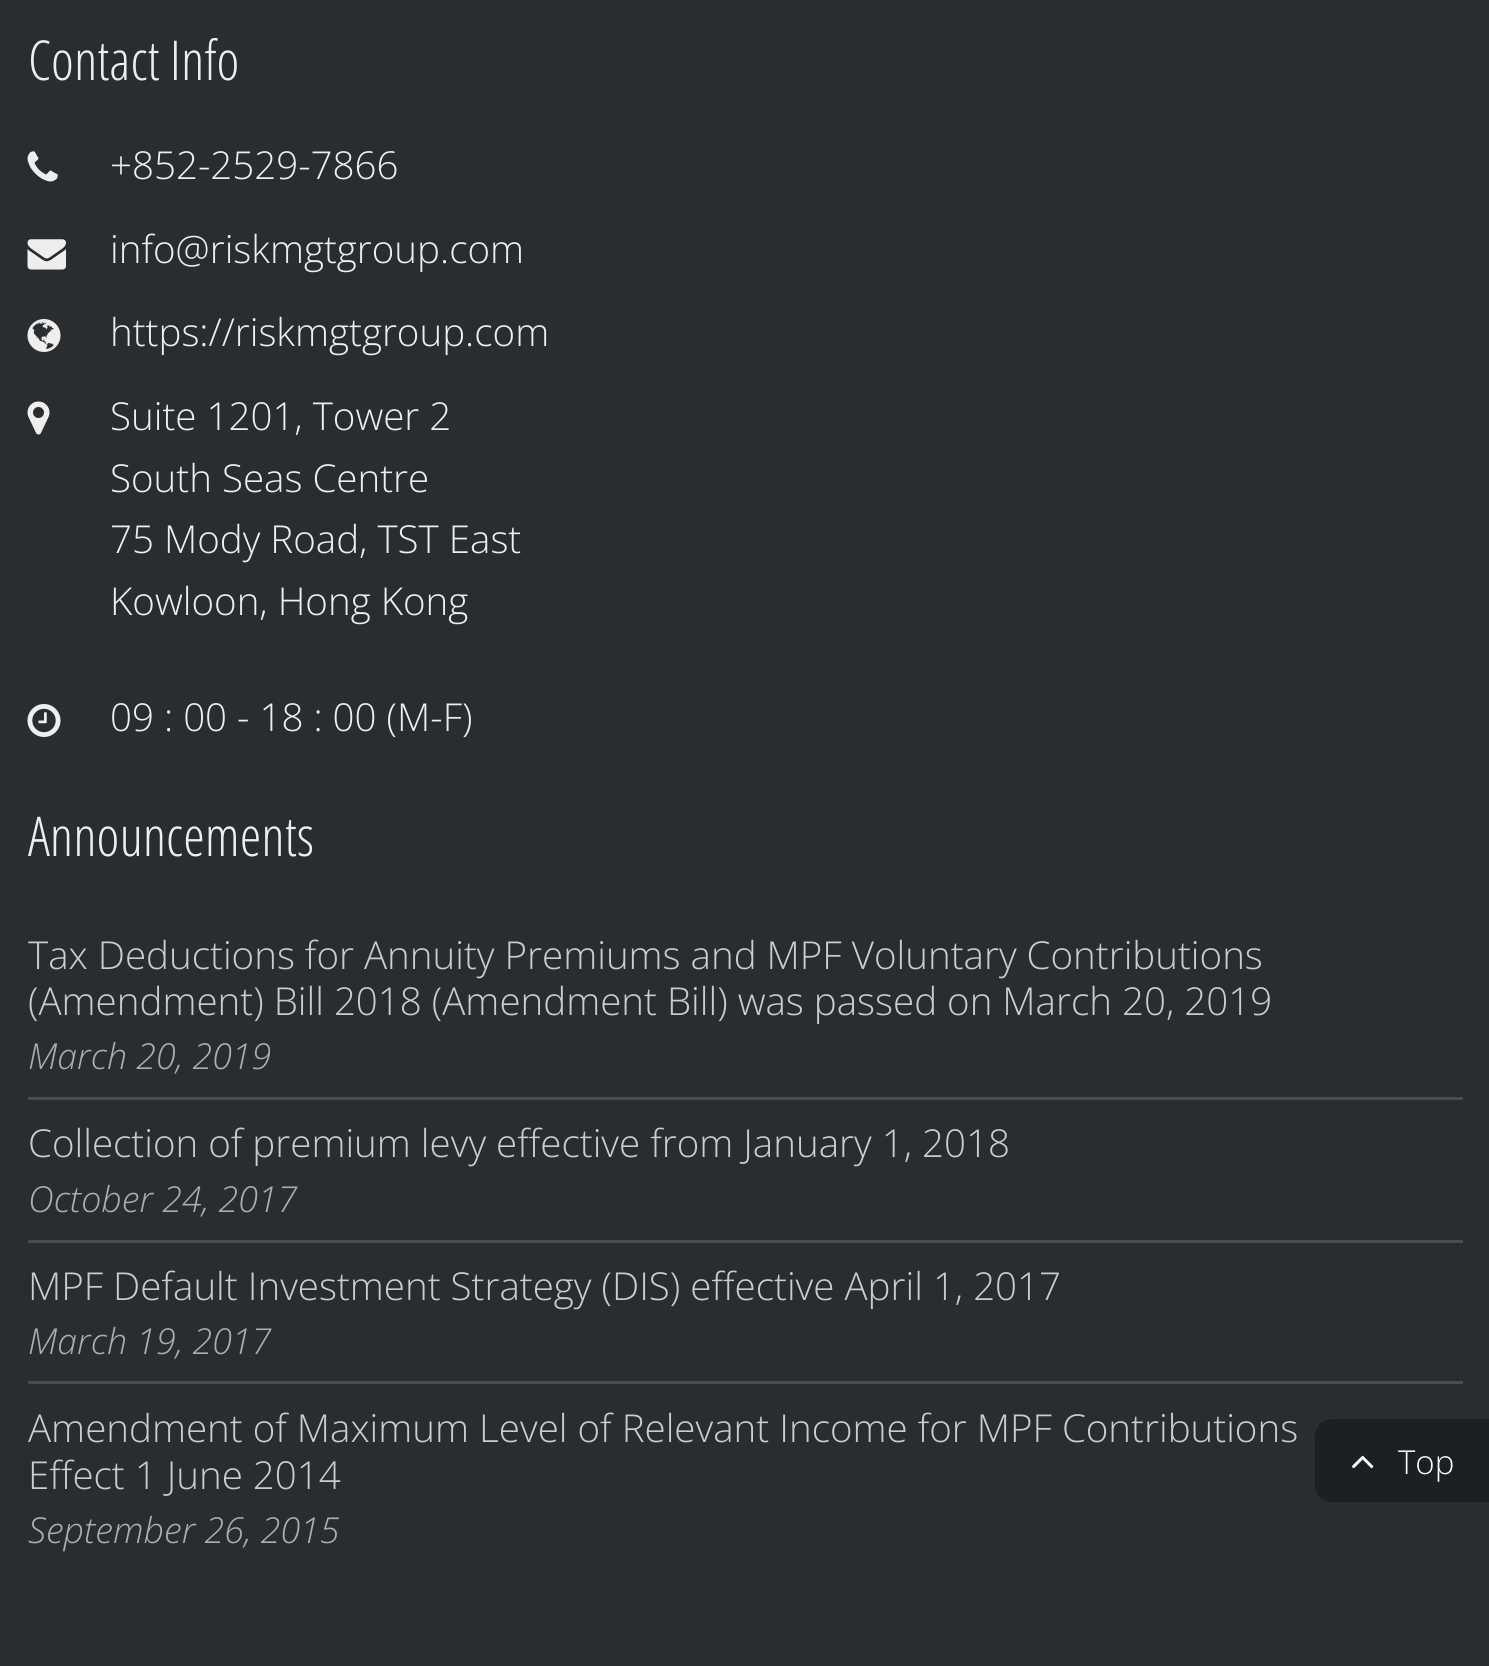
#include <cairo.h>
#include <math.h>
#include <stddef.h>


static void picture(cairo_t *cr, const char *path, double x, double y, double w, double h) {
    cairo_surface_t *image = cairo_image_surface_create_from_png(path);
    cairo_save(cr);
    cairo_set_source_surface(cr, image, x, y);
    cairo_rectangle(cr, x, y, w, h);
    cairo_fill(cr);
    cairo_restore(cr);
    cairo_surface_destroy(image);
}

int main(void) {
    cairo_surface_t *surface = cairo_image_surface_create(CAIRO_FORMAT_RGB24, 1489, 1666);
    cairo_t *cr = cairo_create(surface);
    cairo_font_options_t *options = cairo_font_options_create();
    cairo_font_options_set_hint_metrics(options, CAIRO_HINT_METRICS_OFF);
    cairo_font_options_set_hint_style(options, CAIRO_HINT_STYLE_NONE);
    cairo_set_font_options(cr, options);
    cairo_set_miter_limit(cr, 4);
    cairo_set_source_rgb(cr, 0.165, 0.176, 0.188);
    cairo_paint(cr);
    cairo_select_font_face(cr, "Open Sans Condensed Light", CAIRO_FONT_SLANT_NORMAL, CAIRO_FONT_WEIGHT_NORMAL);
    cairo_set_font_size(cr, 55);
    cairo_set_source_rgb(cr, 0.933, 0.933, 0.933);
    cairo_move_to(cr, 28, 80);
    cairo_show_text(cr, "Contact Info");
    picture(cr, "img1.png", 27, 151, 31, 31);
    cairo_select_font_face(cr, "Open Sans Light", CAIRO_FONT_SLANT_NORMAL, CAIRO_FONT_WEIGHT_NORMAL);
    cairo_set_font_size(cr, 38.5);
    cairo_move_to(cr, 110, 179);
    cairo_show_text(cr, "+852-2529-7866");
    picture(cr, "img2.png", 27, 239, 39, 31);
    cairo_move_to(cr, 110, 263);
    cairo_show_text(cr, "info@riskmgtgroup.com");
    picture(cr, "img3.png", 27, 319, 34, 33);
    cairo_move_to(cr, 110, 346);
    cairo_show_text(cr, "https://riskmgtgroup.com");
    picture(cr, "img4.png", 27, 401, 23, 34);
    cairo_move_to(cr, 110, 430);
    cairo_show_text(cr, "Suite 1201, Tower 2");
    cairo_move_to(cr, 110, 492);
    cairo_show_text(cr, "South Seas Centre");
    cairo_move_to(cr, 110, 553);
    cairo_show_text(cr, "75 Mody Road, TST East");
    cairo_move_to(cr, 110, 615);
    cairo_show_text(cr, "Kowloon, Hong Kong");
    picture(cr, "img5.png", 27, 704, 34, 33);
    cairo_move_to(cr, 110, 731);
    cairo_show_text(cr, "09 : 00 - 18 : 00 (M-F)");
    cairo_select_font_face(cr, "Open Sans Condensed Light", CAIRO_FONT_SLANT_NORMAL, CAIRO_FONT_WEIGHT_NORMAL);
    cairo_set_font_size(cr, 55);
    cairo_move_to(cr, 28, 856);
    cairo_show_text(cr, "Announcements");
    cairo_set_source_rgb(cr, 0.271, 0.302, 0.329);
    cairo_rectangle(cr, 28, 1097, 1435, 3);
    cairo_fill(cr);
    cairo_select_font_face(cr, "Open Sans Light", CAIRO_FONT_SLANT_NORMAL, CAIRO_FONT_WEIGHT_NORMAL);
    cairo_set_font_size(cr, 38.5);
    cairo_set_source_rgb(cr, 0.8, 0.8, 0.8);
    cairo_move_to(cr, 28, 969);
    cairo_show_text(cr, "Tax Deductions for Annuity Premiums and MPF Voluntary Contributions");
    cairo_move_to(cr, 28, 1015);
    cairo_show_text(cr, "(Amendment) Bill 2018 (Amendment Bill) was passed on March 20, 2019");
    cairo_select_font_face(cr, "Open Sans Light", CAIRO_FONT_SLANT_ITALIC, CAIRO_FONT_WEIGHT_NORMAL);
    cairo_set_font_size(cr, 35.75);
    cairo_set_source_rgb(cr, 0.678, 0.678, 0.678);
    cairo_move_to(cr, 28, 1069);
    cairo_show_text(cr, "March 20, 2019");
    cairo_set_source_rgb(cr, 0.271, 0.302, 0.329);
    cairo_rectangle(cr, 28, 1240, 1435, 3);
    cairo_fill(cr);
    cairo_select_font_face(cr, "Open Sans Light", CAIRO_FONT_SLANT_NORMAL, CAIRO_FONT_WEIGHT_NORMAL);
    cairo_set_font_size(cr, 38.5);
    cairo_set_source_rgb(cr, 0.8, 0.8, 0.8);
    cairo_move_to(cr, 28, 1157);
    cairo_show_text(cr, "Collection of premium levy effective from January 1, 2018");
    cairo_select_font_face(cr, "Open Sans Light", CAIRO_FONT_SLANT_ITALIC, CAIRO_FONT_WEIGHT_NORMAL);
    cairo_set_font_size(cr, 35.75);
    cairo_set_source_rgb(cr, 0.678, 0.678, 0.678);
    cairo_move_to(cr, 28, 1212);
    cairo_show_text(cr, "October 24, 2017");
    cairo_set_source_rgb(cr, 0.271, 0.302, 0.329);
    cairo_rectangle(cr, 28, 1381, 1435, 3);
    cairo_fill(cr);
    cairo_select_font_face(cr, "Open Sans Light", CAIRO_FONT_SLANT_NORMAL, CAIRO_FONT_WEIGHT_NORMAL);
    cairo_set_font_size(cr, 38.5);
    cairo_set_source_rgb(cr, 0.8, 0.8, 0.8);
    cairo_move_to(cr, 28, 1300);
    cairo_show_text(cr, "MPF Default Investment Strategy (DIS) effective April 1, 2017");
    cairo_select_font_face(cr, "Open Sans Light", CAIRO_FONT_SLANT_ITALIC, CAIRO_FONT_WEIGHT_NORMAL);
    cairo_set_font_size(cr, 35.75);
    cairo_set_source_rgb(cr, 0.678, 0.678, 0.678);
    cairo_move_to(cr, 28, 1354);
    cairo_show_text(cr, "March 19, 2017");
    cairo_select_font_face(cr, "Open Sans Light", CAIRO_FONT_SLANT_NORMAL, CAIRO_FONT_WEIGHT_NORMAL);
    cairo_set_font_size(cr, 38.5);
    cairo_set_source_rgb(cr, 0.8, 0.8, 0.8);
    cairo_move_to(cr, 28, 1442);
    cairo_show_text(cr, "Amendment of Maximum Level of Relevant Income for MPF Contributions");
    cairo_move_to(cr, 28, 1489);
    cairo_show_text(cr, "Effect 1 June 2014");
    cairo_select_font_face(cr, "Open Sans Light", CAIRO_FONT_SLANT_ITALIC, CAIRO_FONT_WEIGHT_NORMAL);
    cairo_set_font_size(cr, 35.75);
    cairo_set_source_rgb(cr, 0.678, 0.678, 0.678);
    cairo_move_to(cr, 28, 1543);
    cairo_show_text(cr, "September 26, 2015");
    cairo_set_source_rgb(cr, 0.114, 0.125, 0.133);
    cairo_new_path(cr);
    cairo_move_to(cr, 1332, 1419);
    cairo_line_to(cr, 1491, 1419);
    cairo_line_to(cr, 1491, 1502);
    cairo_line_to(cr, 1332, 1502);
    cairo_curve_to(cr, 1322.5, 1502, 1315, 1494.5, 1315, 1485);
    cairo_line_to(cr, 1315, 1436);
    cairo_curve_to(cr, 1315, 1426.5, 1322.5, 1419, 1332, 1419);
    cairo_close_path(cr);
    cairo_fill(cr);
    picture(cr, "img6.png", 1352, 1455, 22, 14);
    cairo_select_font_face(cr, "Open Sans Light", CAIRO_FONT_SLANT_NORMAL, CAIRO_FONT_WEIGHT_NORMAL);
    cairo_set_font_size(cr, 33);
    cairo_set_source_rgb(cr, 1, 1, 1);
    cairo_move_to(cr, 1398, 1474);
    cairo_show_text(cr, "Top");
    cairo_surface_write_to_png(surface, "page.png");
    cairo_font_options_destroy(options);
    cairo_destroy(cr);
    cairo_surface_destroy(surface);
    return 0;
}
